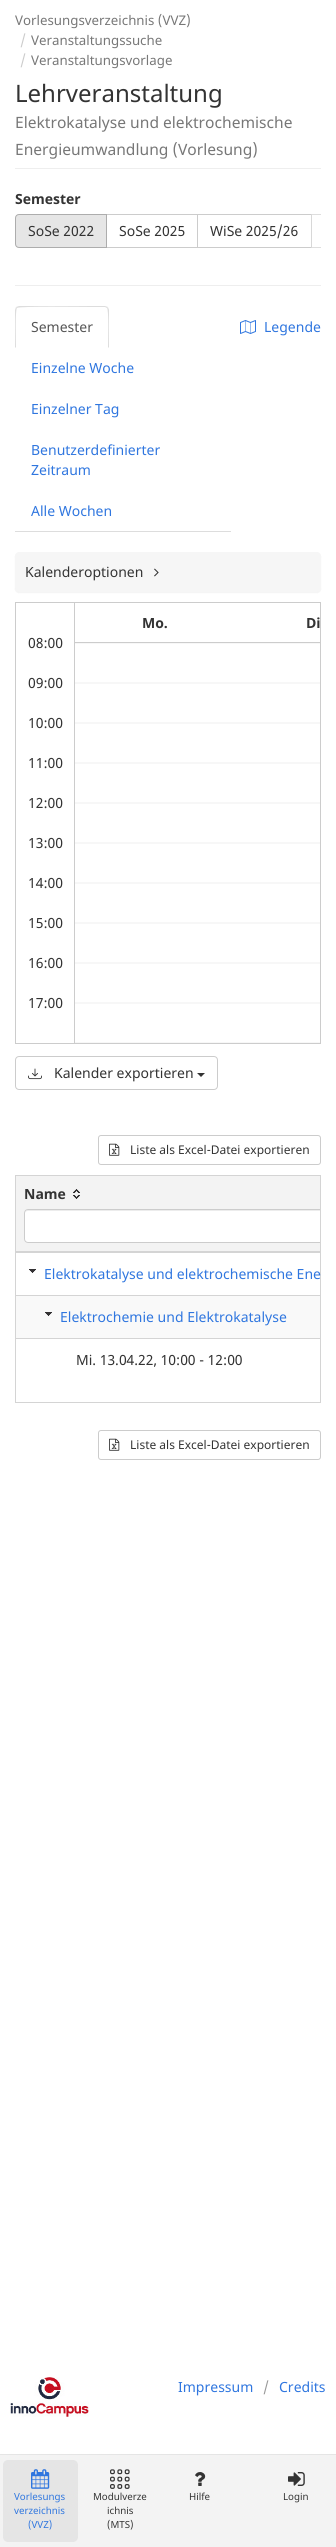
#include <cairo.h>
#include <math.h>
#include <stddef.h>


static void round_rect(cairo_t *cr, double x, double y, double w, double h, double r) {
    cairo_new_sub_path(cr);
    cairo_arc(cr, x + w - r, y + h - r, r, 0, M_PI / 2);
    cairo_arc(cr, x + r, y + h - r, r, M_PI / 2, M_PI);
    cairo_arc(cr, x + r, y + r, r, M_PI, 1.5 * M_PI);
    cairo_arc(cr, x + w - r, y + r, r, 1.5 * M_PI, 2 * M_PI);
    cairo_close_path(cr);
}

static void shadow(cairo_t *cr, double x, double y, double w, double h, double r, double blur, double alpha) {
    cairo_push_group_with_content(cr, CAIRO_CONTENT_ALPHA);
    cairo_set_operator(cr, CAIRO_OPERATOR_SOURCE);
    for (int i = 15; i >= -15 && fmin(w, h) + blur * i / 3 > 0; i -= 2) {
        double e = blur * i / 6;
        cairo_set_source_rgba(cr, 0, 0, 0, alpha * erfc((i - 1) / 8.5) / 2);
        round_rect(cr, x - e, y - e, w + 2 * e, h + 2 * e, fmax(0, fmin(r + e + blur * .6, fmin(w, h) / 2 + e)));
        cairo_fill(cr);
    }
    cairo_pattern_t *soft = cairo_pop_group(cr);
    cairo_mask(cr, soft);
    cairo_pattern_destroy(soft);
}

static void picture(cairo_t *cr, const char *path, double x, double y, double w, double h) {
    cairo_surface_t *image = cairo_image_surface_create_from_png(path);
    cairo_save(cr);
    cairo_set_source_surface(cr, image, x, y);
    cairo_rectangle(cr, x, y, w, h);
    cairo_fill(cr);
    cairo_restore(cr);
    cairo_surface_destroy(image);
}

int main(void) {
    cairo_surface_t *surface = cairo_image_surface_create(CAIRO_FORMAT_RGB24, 336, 2547);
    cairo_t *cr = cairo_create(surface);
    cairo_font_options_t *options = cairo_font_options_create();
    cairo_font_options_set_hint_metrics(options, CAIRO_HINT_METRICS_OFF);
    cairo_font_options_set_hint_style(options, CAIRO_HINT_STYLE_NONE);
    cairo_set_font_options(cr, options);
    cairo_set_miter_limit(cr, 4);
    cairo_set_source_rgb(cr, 1, 1, 1);
    cairo_paint(cr);
    cairo_set_source_rgb(cr, 0.933, 0.933, 0.933);
    cairo_rectangle(cr, 15, 168, 306, 1);
    cairo_fill(cr);
    cairo_select_font_face(cr, "Noto Sans", CAIRO_FONT_SLANT_NORMAL, CAIRO_FONT_WEIGHT_NORMAL);
    cairo_set_font_size(cr, 13.3);
    cairo_set_source_rgb(cr, 0.467, 0.467, 0.467);
    cairo_move_to(cr, 15, 25);
    cairo_show_text(cr, "Vorlesungsverzeichnis (VVZ)");
    cairo_set_font_size(cr, 14);
    cairo_set_source_rgb(cr, 0.8, 0.8, 0.8);
    cairo_move_to(cr, 20, 45);
    cairo_show_text(cr, "/");
    cairo_set_font_size(cr, 13.3);
    cairo_set_source_rgb(cr, 0.467, 0.467, 0.467);
    cairo_move_to(cr, 31, 45);
    cairo_show_text(cr, "Veranstaltungssuche");
    cairo_set_font_size(cr, 14);
    cairo_set_source_rgb(cr, 0.8, 0.8, 0.8);
    cairo_move_to(cr, 20, 65);
    cairo_show_text(cr, "/");
    cairo_set_font_size(cr, 13.3);
    cairo_set_source_rgb(cr, 0.467, 0.467, 0.467);
    cairo_move_to(cr, 31, 65);
    cairo_show_text(cr, "Veranstaltungsvorlage");
    cairo_set_font_size(cr, 24);
    cairo_set_source_rgb(cr, 0.2, 0.2, 0.2);
    cairo_move_to(cr, 15, 102);
    cairo_show_text(cr, "Lehrveranstaltung");
    cairo_set_font_size(cr, 15.6);
    cairo_set_source_rgb(cr, 0.467, 0.467, 0.467);
    cairo_move_to(cr, 15, 128);
    cairo_show_text(cr, "Elektrokatalyse und elektrochemische");
    cairo_move_to(cr, 15, 155);
    cairo_show_text(cr, "Energieumwandlung (Vorlesung)");
    cairo_select_font_face(cr, "Noto Sans", CAIRO_FONT_SLANT_NORMAL, CAIRO_FONT_WEIGHT_BOLD);
    cairo_set_font_size(cr, 14);
    cairo_set_source_rgb(cr, 0.2, 0.2, 0.2);
    cairo_move_to(cr, 15, 204);
    cairo_show_text(cr, "Semester");
    cairo_rectangle(cr, 106.5, 214.5, 91, 33);
    cairo_set_source_rgb(cr, 0.8, 0.8, 0.8);
    cairo_set_line_width(cr, 1);
    cairo_stroke(cr);
    cairo_set_source_rgb(cr, 0.902, 0.902, 0.902);
    cairo_new_path(cr);
    cairo_move_to(cr, 19, 214.5);
    cairo_line_to(cr, 106.5, 214.5);
    cairo_line_to(cr, 106.5, 247.5);
    cairo_line_to(cr, 19, 247.5);
    cairo_curve_to(cr, 17, 247.5, 15.5, 246, 15.5, 244);
    cairo_line_to(cr, 15.5, 218);
    cairo_curve_to(cr, 15.5, 216, 17, 214.5, 19, 214.5);
    cairo_close_path(cr);
    cairo_fill_preserve(cr);
    cairo_set_source_rgb(cr, 0.678, 0.678, 0.678);
    cairo_stroke(cr);
    cairo_select_font_face(cr, "Noto Sans", CAIRO_FONT_SLANT_NORMAL, CAIRO_FONT_WEIGHT_NORMAL);
    cairo_set_source_rgb(cr, 0.2, 0.2, 0.2);
    cairo_move_to(cr, 28, 236);
    cairo_show_text(cr, "SoSe 2022");
    cairo_move_to(cr, 119, 236);
    cairo_show_text(cr, "SoSe 2025");
    cairo_rectangle(cr, 197.5, 214.5, 114, 33);
    cairo_set_source_rgb(cr, 0.8, 0.8, 0.8);
    cairo_stroke(cr);
    cairo_set_source_rgb(cr, 0.2, 0.2, 0.2);
    cairo_move_to(cr, 210, 236);
    cairo_show_text(cr, "WiSe 2025/26");
    cairo_set_source_rgba(cr, 1, 1, 1, 0.65);
    cairo_rectangle(cr, 311, 214, 1, 34);
    cairo_fill(cr);
    cairo_save(cr);
    cairo_rectangle(cr, 15, 189, 306, 74);
    cairo_clip(cr);
    cairo_rectangle(cr, 311.5, 214.5, 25, 33);
    cairo_set_source_rgba(cr, 0.8, 0.8, 0.8, 0.65);
    cairo_stroke(cr);
    cairo_restore(cr);
    cairo_set_source_rgb(cr, 0.933, 0.933, 0.933);
    cairo_rectangle(cr, 15, 285, 306, 1);
    cairo_fill(cr);
    cairo_set_source_rgb(cr, 0.867, 0.867, 0.867);
    cairo_rectangle(cr, 15, 531, 216, 1);
    cairo_fill(cr);
    cairo_new_path(cr);
    cairo_move_to(cr, 19, 306);
    cairo_line_to(cr, 16, 307);
    cairo_line_to(cr, 17, 308);
    cairo_curve_to(cr, 19, 306, 83, 307, 91, 307);
    cairo_line_to(cr, 105, 307);
    cairo_line_to(cr, 107, 308);
    cairo_line_to(cr, 108, 307);
    cairo_line_to(cr, 105, 306);
    cairo_close_path(cr);
    cairo_fill(cr);
    cairo_new_path(cr);
    cairo_move_to(cr, 109, 348);
    cairo_line_to(cr, 109, 310);
    cairo_curve_to(cr, 109, 309, 108, 308, 108, 307);
    cairo_line_to(cr, 107, 308);
    cairo_curve_to(cr, 109, 310, 108, 342, 108, 347);
    cairo_close_path(cr);
    cairo_fill(cr);
    cairo_new_path(cr);
    cairo_move_to(cr, 15, 348);
    cairo_line_to(cr, 16, 347);
    cairo_curve_to(cr, 16, 342, 15, 310, 17, 308);
    cairo_line_to(cr, 16, 307);
    cairo_line_to(cr, 15, 310);
    cairo_close_path(cr);
    cairo_fill(cr);
    cairo_set_source_rgb(cr, 0.333, 0.333, 0.333);
    cairo_move_to(cr, 31, 332);
    cairo_show_text(cr, "Semester");
    cairo_set_source_rgb(cr, 0.184, 0.463, 0.875);
    cairo_move_to(cr, 31, 373);
    cairo_show_text(cr, "Einzelne Woche");
    cairo_move_to(cr, 31, 414);
    cairo_show_text(cr, "Einzelner Tag");
    cairo_move_to(cr, 31, 455);
    cairo_show_text(cr, "Benutzerdefinierter");
    cairo_move_to(cr, 31, 475);
    cairo_show_text(cr, "Zeitraum");
    cairo_move_to(cr, 31, 516);
    cairo_show_text(cr, "Alle Wochen");
    picture(cr, "img1.png", 240, 320, 16, 14);
    cairo_move_to(cr, 264, 332);
    cairo_show_text(cr, "Legende");
    cairo_set_source_rgb(cr, 0, 0, 0);
    shadow(cr, 15, 553, 306, 40, 4, 0.5, 0.05);
    cairo_set_source_rgb(cr, 0.961, 0.961, 0.961);
    round_rect(cr, 15, 552, 306, 40, 4);
    cairo_fill(cr);
    cairo_set_source_rgb(cr, 0.2, 0.2, 0.2);
    cairo_move_to(cr, 25, 577);
    cairo_show_text(cr, "Kalenderoptionen");
    picture(cr, "img2.png", 154, 568, 5, 9);
    cairo_set_source_rgb(cr, 0.8, 0.8, 0.8);
    cairo_rectangle(cr, 75, 602, 246, 1);
    cairo_fill(cr);
    cairo_rectangle(cr, 320, 602, 1, 442);
    cairo_fill(cr);
    cairo_rectangle(cr, 75, 1043, 246, 1);
    cairo_fill(cr);
    cairo_rectangle(cr, 75, 642, 245, 1);
    cairo_fill(cr);
    cairo_select_font_face(cr, "Noto Sans", CAIRO_FONT_SLANT_NORMAL, CAIRO_FONT_WEIGHT_BOLD);
    cairo_set_source_rgb(cr, 0.2, 0.2, 0.2);
    cairo_move_to(cr, 142, 628);
    cairo_show_text(cr, "Mo.");
    cairo_set_source_rgb(cr, 0.965, 0.965, 0.965);
    cairo_rectangle(cr, 75, 643, 245, 1);
    cairo_fill(cr);
    cairo_rectangle(cr, 75, 682, 160, 2);
    cairo_fill(cr);
    cairo_rectangle(cr, 75, 722, 160, 2);
    cairo_fill(cr);
    cairo_rectangle(cr, 75, 762, 160, 2);
    cairo_fill(cr);
    cairo_rectangle(cr, 75, 802, 160, 2);
    cairo_fill(cr);
    cairo_rectangle(cr, 75, 842, 160, 2);
    cairo_fill(cr);
    cairo_rectangle(cr, 75, 882, 160, 2);
    cairo_fill(cr);
    cairo_rectangle(cr, 75, 922, 160, 2);
    cairo_fill(cr);
    cairo_rectangle(cr, 75, 962, 160, 2);
    cairo_fill(cr);
    cairo_rectangle(cr, 75, 1002, 160, 2);
    cairo_fill(cr);
    cairo_rectangle(cr, 75, 1042, 245, 1);
    cairo_fill(cr);
    cairo_set_source_rgb(cr, 0.2, 0.2, 0.2);
    cairo_move_to(cr, 306, 628);
    cairo_show_text(cr, "Di");
    cairo_set_source_rgb(cr, 0.965, 0.965, 0.965);
    cairo_rectangle(cr, 235, 682, 85, 2);
    cairo_fill(cr);
    cairo_rectangle(cr, 235, 722, 85, 2);
    cairo_fill(cr);
    cairo_rectangle(cr, 235, 762, 85, 2);
    cairo_fill(cr);
    cairo_rectangle(cr, 235, 802, 85, 2);
    cairo_fill(cr);
    cairo_rectangle(cr, 235, 842, 85, 2);
    cairo_fill(cr);
    cairo_rectangle(cr, 235, 882, 85, 2);
    cairo_fill(cr);
    cairo_rectangle(cr, 235, 922, 85, 2);
    cairo_fill(cr);
    cairo_rectangle(cr, 235, 962, 85, 2);
    cairo_fill(cr);
    cairo_rectangle(cr, 235, 1002, 85, 2);
    cairo_fill(cr);
    cairo_rectangle(cr, 15.5, 602.5, 59, 441);
    cairo_set_source_rgb(cr, 0.8, 0.8, 0.8);
    cairo_stroke(cr);
    cairo_select_font_face(cr, "Noto Sans", CAIRO_FONT_SLANT_NORMAL, CAIRO_FONT_WEIGHT_NORMAL);
    cairo_set_source_rgb(cr, 0.2, 0.2, 0.2);
    cairo_move_to(cr, 28, 648);
    cairo_show_text(cr, "08:00");
    cairo_move_to(cr, 28, 688);
    cairo_show_text(cr, "09:00");
    cairo_move_to(cr, 28, 728);
    cairo_show_text(cr, "10:00");
    cairo_move_to(cr, 28, 768);
    cairo_show_text(cr, "11:00");
    cairo_move_to(cr, 28, 808);
    cairo_show_text(cr, "12:00");
    cairo_move_to(cr, 28, 848);
    cairo_show_text(cr, "13:00");
    cairo_move_to(cr, 28, 888);
    cairo_show_text(cr, "14:00");
    cairo_move_to(cr, 28, 928);
    cairo_show_text(cr, "15:00");
    cairo_move_to(cr, 28, 968);
    cairo_show_text(cr, "16:00");
    cairo_move_to(cr, 28, 1008);
    cairo_show_text(cr, "17:00");
    round_rect(cr, 15.5, 1056.5, 202, 33, 3.5);
    cairo_set_source_rgb(cr, 0.8, 0.8, 0.8);
    cairo_stroke(cr);
    picture(cr, "img3.png", 28, 1068, 14, 12);
    cairo_set_source_rgb(cr, 0.2, 0.2, 0.2);
    cairo_move_to(cr, 54, 1078);
    cairo_show_text(cr, "Kalender exportieren");
    cairo_new_path(cr);
    cairo_move_to(cr, 197, 1073);
    cairo_line_to(cr, 205, 1073);
    cairo_line_to(cr, 201, 1077);
    cairo_close_path(cr);
    cairo_fill(cr);
    round_rect(cr, 98.5, 1135.5, 222, 29, 2.5);
    cairo_set_source_rgb(cr, 0.8, 0.8, 0.8);
    cairo_stroke(cr);
    picture(cr, "img4.png", 109, 1143, 11, 13);
    cairo_set_font_size(cr, 12);
    cairo_set_source_rgb(cr, 0.2, 0.2, 0.2);
    cairo_move_to(cr, 130, 1154);
    cairo_show_text(cr, "Liste als Excel-Datei exportieren");
    cairo_rectangle(cr, 15.5, 1175.5, 305, 227);
    cairo_set_source_rgb(cr, 0.831, 0.831, 0.831);
    cairo_stroke(cr);
    cairo_set_source_rgb(cr, 0.953, 0.953, 0.953);
    cairo_rectangle(cr, 16, 1176, 304, 75);
    cairo_fill(cr);
    cairo_set_source_rgb(cr, 0.831, 0.831, 0.831);
    cairo_rectangle(cr, 16, 1251, 304, 2);
    cairo_fill(cr);
    cairo_select_font_face(cr, "Noto Sans", CAIRO_FONT_SLANT_NORMAL, CAIRO_FONT_WEIGHT_BOLD);
    cairo_set_font_size(cr, 14);
    cairo_set_source_rgb(cr, 0.2, 0.2, 0.2);
    cairo_move_to(cr, 24, 1199);
    cairo_show_text(cr, "Name");
    picture(cr, "img5.png", 73, 1189, 7, 10);
    cairo_set_source_rgb(cr, 1, 1, 1);
    cairo_new_path(cr);
    cairo_move_to(cr, 28, 1209);
    cairo_line_to(cr, 320, 1209);
    cairo_line_to(cr, 320, 1243);
    cairo_line_to(cr, 28, 1243);
    cairo_curve_to(cr, 26, 1243, 24, 1241, 24, 1239);
    cairo_line_to(cr, 24, 1213);
    cairo_curve_to(cr, 24, 1211, 26, 1209, 28, 1209);
    cairo_close_path(cr);
    cairo_fill(cr);
    cairo_save(cr);
    cairo_rectangle(cr, 16, 1176, 304, 76);
    cairo_clip(cr);
    cairo_set_source_rgb(cr, 0.925, 0.925, 0.925);
    cairo_new_path(cr);
    cairo_move_to(cr, 28, 1211);
    cairo_line_to(cr, 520, 1211);
    cairo_curve_to(cr, 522, 1211, 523, 1212, 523, 1214);
    cairo_curve_to(cr, 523, 1212, 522, 1210, 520, 1210);
    cairo_line_to(cr, 28, 1210);
    cairo_curve_to(cr, 26, 1210, 25, 1212, 25, 1214);
    cairo_curve_to(cr, 25, 1212, 26, 1211, 28, 1211);
    cairo_close_path(cr);
    cairo_fill(cr);
    round_rect(cr, 24.5, 1209.5, 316, 33, 3.5);
    cairo_set_source_rgb(cr, 0.8, 0.8, 0.8);
    cairo_stroke(cr);
    cairo_restore(cr);
    picture(cr, "img6.png", 29, 1269, 7, 4);
    cairo_select_font_face(cr, "Noto Sans", CAIRO_FONT_SLANT_NORMAL, CAIRO_FONT_WEIGHT_NORMAL);
    cairo_set_source_rgb(cr, 0.184, 0.463, 0.875);
    cairo_move_to(cr, 44, 1279);
    cairo_show_text(cr, "Elektrokatalyse und elektrochemische Ene");
    cairo_set_source_rgb(cr, 0.976, 0.976, 0.976);
    cairo_rectangle(cr, 16, 1296, 304, 42);
    cairo_fill(cr);
    cairo_set_source_rgb(cr, 0.831, 0.831, 0.831);
    cairo_rectangle(cr, 16, 1295, 304, 1);
    cairo_fill(cr);
    picture(cr, "img7.png", 45, 1312, 7, 4);
    cairo_set_source_rgb(cr, 0.184, 0.463, 0.875);
    cairo_move_to(cr, 60, 1322);
    cairo_show_text(cr, "Elektrochemie und Elektrokatalyse");
    cairo_set_source_rgb(cr, 0.831, 0.831, 0.831);
    cairo_rectangle(cr, 16, 1338, 304, 1);
    cairo_fill(cr);
    cairo_set_source_rgb(cr, 0.2, 0.2, 0.2);
    cairo_move_to(cr, 76, 1365);
    cairo_show_text(cr, "Mi. 13.04.22, 10:00 - 12:00");
    round_rect(cr, 98.5, 1430.5, 222, 29, 2.5);
    cairo_set_source_rgb(cr, 0.8, 0.8, 0.8);
    cairo_stroke(cr);
    picture(cr, "img4.png", 109, 1438, 11, 13);
    cairo_set_font_size(cr, 12);
    cairo_set_source_rgb(cr, 0.2, 0.2, 0.2);
    cairo_move_to(cr, 130, 1449);
    cairo_show_text(cr, "Liste als Excel-Datei exportieren");
    picture(cr, "img8.png", 10, 2377, 79, 40);
    cairo_set_font_size(cr, 14);
    cairo_set_source_rgb(cr, 0.184, 0.463, 0.875);
    cairo_move_to(cr, 178, 2392);
    cairo_show_text(cr, "Impressum");
    cairo_set_source_rgb(cr, 0.6, 0.6, 0.6);
    cairo_move_to(cr, 263, 2392);
    cairo_show_text(cr, "/");
    cairo_set_source_rgb(cr, 0.184, 0.463, 0.875);
    cairo_move_to(cr, 279, 2392);
    cairo_show_text(cr, "Credits");
    cairo_set_source_rgb(cr, 0.953, 0.953, 0.953);
    cairo_rectangle(cr, 0, 2455, 336, 92);
    cairo_fill(cr);
    cairo_set_source_rgb(cr, 0.898, 0.898, 0.898);
    cairo_rectangle(cr, 0, 2454, 336, 1);
    cairo_fill(cr);
    round_rect(cr, 3, 2460, 75, 82, 5);
    cairo_fill(cr);
    picture(cr, "img9.png", 31, 2469, 19, 20);
    cairo_set_font_size(cr, 9.75);
    cairo_set_source_rgb(cr, 0.184, 0.463, 0.875);
    cairo_move_to(cr, 14, 2500);
    cairo_show_text(cr, "Vorlesungs");
    cairo_move_to(cr, 14, 2514);
    cairo_show_text(cr, "verzeichnis");
    cairo_move_to(cr, 28, 2528);
    cairo_show_text(cr, "(VVZ)");
    picture(cr, "img10.png", 110, 2469, 20, 20);
    cairo_set_source_rgb(cr, 0.2, 0.2, 0.2);
    cairo_move_to(cr, 93, 2500);
    cairo_show_text(cr, "Modulverze");
    cairo_move_to(cr, 107, 2514);
    cairo_show_text(cr, "ichnis");
    cairo_move_to(cr, 107, 2528);
    cairo_show_text(cr, "(MTS)");
    picture(cr, "img11.png", 195, 2472, 11, 14);
    cairo_move_to(cr, 189, 2500);
    cairo_show_text(cr, "Hilfe");
    picture(cr, "img12.png", 288, 2472, 17, 14);
    cairo_move_to(cr, 283, 2500);
    cairo_show_text(cr, "Login");
    cairo_surface_write_to_png(surface, "page.png");
    cairo_font_options_destroy(options);
    cairo_destroy(cr);
    cairo_surface_destroy(surface);
    return 0;
}
